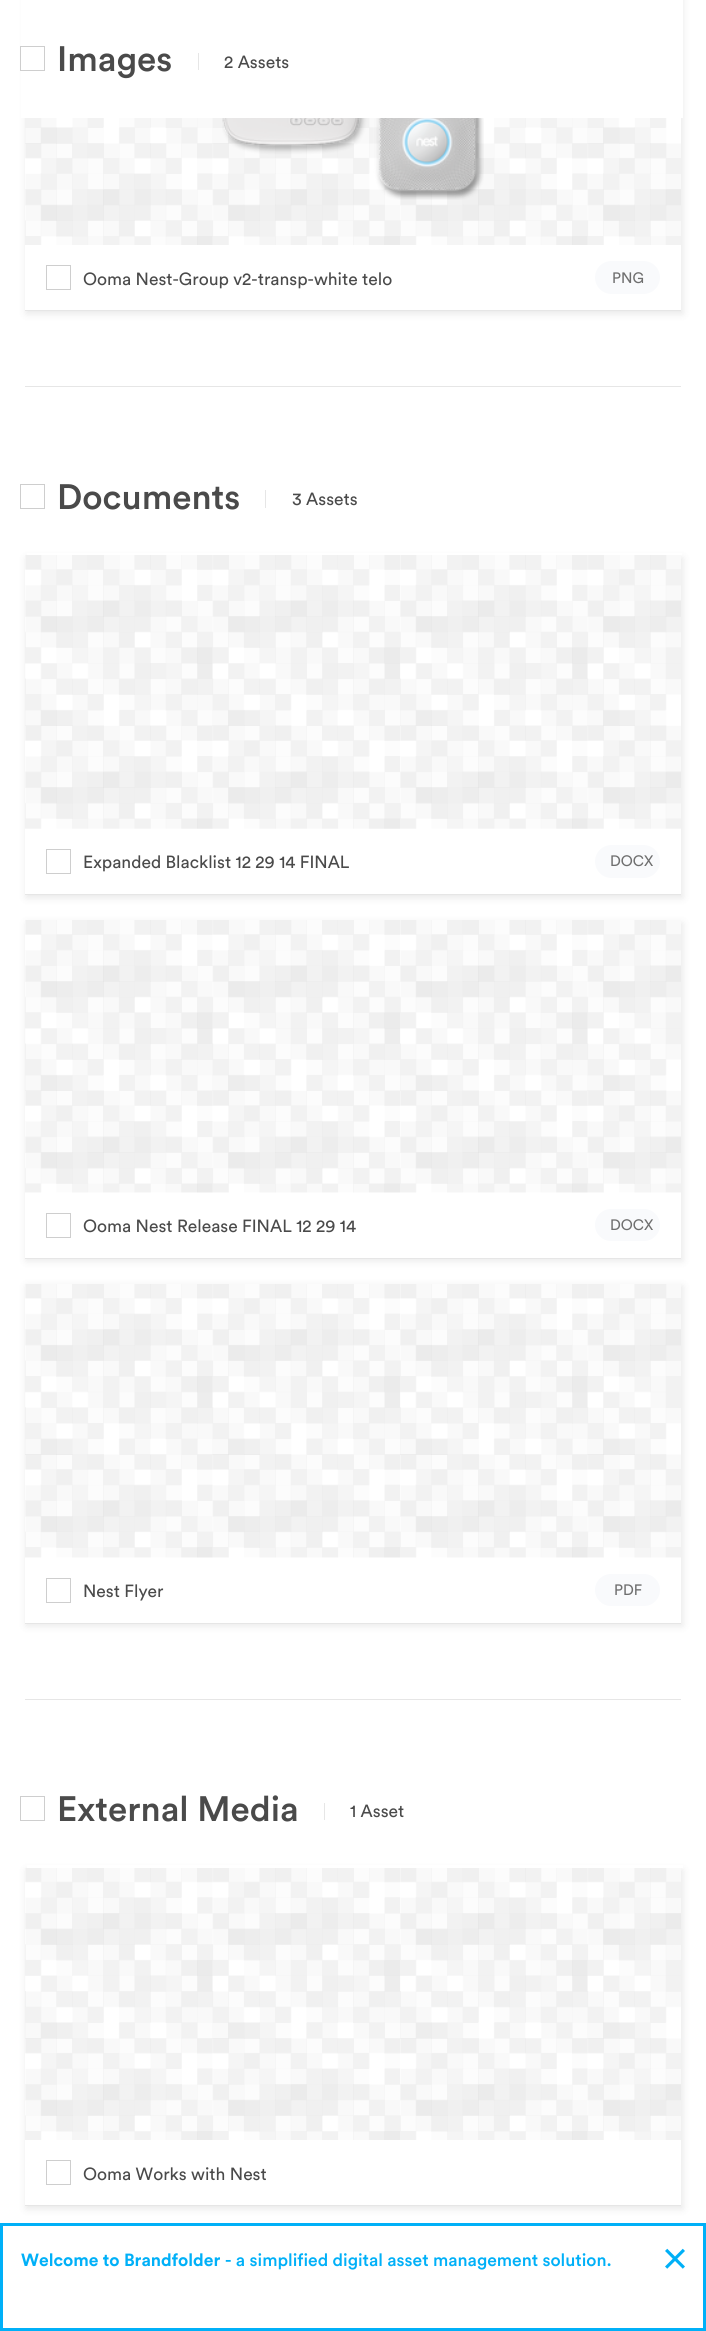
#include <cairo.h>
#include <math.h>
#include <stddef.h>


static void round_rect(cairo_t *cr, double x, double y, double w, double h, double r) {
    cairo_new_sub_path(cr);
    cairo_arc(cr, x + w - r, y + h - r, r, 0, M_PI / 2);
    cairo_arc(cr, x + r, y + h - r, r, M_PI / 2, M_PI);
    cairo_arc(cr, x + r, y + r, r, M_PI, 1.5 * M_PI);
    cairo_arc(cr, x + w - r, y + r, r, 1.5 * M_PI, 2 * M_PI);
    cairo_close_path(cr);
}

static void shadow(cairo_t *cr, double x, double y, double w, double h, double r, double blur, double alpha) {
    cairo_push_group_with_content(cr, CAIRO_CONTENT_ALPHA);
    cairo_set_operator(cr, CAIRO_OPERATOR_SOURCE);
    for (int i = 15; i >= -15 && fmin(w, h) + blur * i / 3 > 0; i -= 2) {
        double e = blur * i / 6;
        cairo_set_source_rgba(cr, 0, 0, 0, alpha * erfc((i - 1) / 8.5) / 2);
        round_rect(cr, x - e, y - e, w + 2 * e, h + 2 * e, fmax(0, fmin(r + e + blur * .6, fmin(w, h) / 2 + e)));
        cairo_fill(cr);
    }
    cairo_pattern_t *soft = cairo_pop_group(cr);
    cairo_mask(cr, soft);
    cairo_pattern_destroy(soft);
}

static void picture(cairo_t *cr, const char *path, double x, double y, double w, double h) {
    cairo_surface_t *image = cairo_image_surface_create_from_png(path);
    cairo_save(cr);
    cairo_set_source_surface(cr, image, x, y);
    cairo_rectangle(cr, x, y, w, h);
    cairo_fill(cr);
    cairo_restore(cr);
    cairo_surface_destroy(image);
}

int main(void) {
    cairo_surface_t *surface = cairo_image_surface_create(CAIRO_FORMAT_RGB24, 706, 2331);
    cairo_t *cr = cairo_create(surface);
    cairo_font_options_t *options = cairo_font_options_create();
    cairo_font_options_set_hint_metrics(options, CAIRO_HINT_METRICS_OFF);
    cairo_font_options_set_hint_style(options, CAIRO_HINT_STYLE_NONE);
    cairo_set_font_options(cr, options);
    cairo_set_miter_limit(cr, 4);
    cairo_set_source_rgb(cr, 1, 1, 1);
    cairo_paint(cr);
    cairo_set_source_rgb(cr, 0.902, 0.902, 0.902);
    cairo_rectangle(cr, 25, 386, 656, 1);
    cairo_fill(cr);
    cairo_save(cr);
    cairo_set_fill_rule(cr, CAIRO_FILL_RULE_EVEN_ODD);
    cairo_new_path(cr);
    cairo_move_to(cr, 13, 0);
    cairo_line_to(cr, 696, 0);
    cairo_line_to(cr, 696, 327);
    cairo_line_to(cr, 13, 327);
    cairo_close_path(cr);
    cairo_move_to(cr, 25, -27);
    cairo_line_to(cr, 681, -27);
    cairo_line_to(cr, 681, 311);
    cairo_line_to(cr, 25, 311);
    cairo_close_path(cr);
    cairo_clip(cr);
    cairo_set_source_rgb(cr, 0, 0, 0);
    shadow(cr, 26, -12, 657, 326, 0, 4, 0.09);
    cairo_restore(cr);
    cairo_set_source_rgb(cr, 1, 1, 1);
    cairo_rectangle(cr, 21, 0, 662, 118);
    cairo_fill(cr);
    cairo_rectangle(cr, 20.5, 46.5, 24, 24);
    cairo_set_source_rgb(cr, 0.808, 0.808, 0.808);
    cairo_set_line_width(cr, 1);
    cairo_stroke(cr);
    cairo_select_font_face(cr, "Circular Medium", CAIRO_FONT_SLANT_NORMAL, CAIRO_FONT_WEIGHT_NORMAL);
    cairo_set_font_size(cr, 35);
    cairo_set_source_rgb(cr, 0.29, 0.29, 0.29);
    cairo_move_to(cr, 57, 71);
    cairo_show_text(cr, "Images");
    cairo_set_source_rgb(cr, 0.902, 0.902, 0.902);
    cairo_rectangle(cr, 198, 53, 1, 17);
    cairo_fill(cr);
    cairo_select_font_face(cr, "Circular", CAIRO_FONT_SLANT_NORMAL, CAIRO_FONT_WEIGHT_NORMAL);
    cairo_set_font_size(cr, 17.5);
    cairo_set_source_rgb(cr, 0.29, 0.29, 0.29);
    cairo_move_to(cr, 224, 68);
    cairo_show_text(cr, "2 Assets");
    picture(cr, "img1.png", 25, 118, 656, 127);
    picture(cr, "img2.png", 222, 118, 262, 82);
    cairo_set_source_rgb(cr, 0.902, 0.902, 0.902);
    cairo_rectangle(cr, 25, 310, 656, 1);
    cairo_fill(cr);
    cairo_rectangle(cr, 46.5, 265.5, 24, 24);
    cairo_set_source_rgb(cr, 0.808, 0.808, 0.808);
    cairo_stroke(cr);
    cairo_set_source_rgb(cr, 0.29, 0.29, 0.29);
    cairo_move_to(cr, 83, 285);
    cairo_show_text(cr, "Ooma Nest-Group v2-transp-white telo");
    cairo_set_source_rgb(cr, 0.973, 0.98, 0.988);
    round_rect(cr, 595, 261, 65, 33, 16.5);
    cairo_fill(cr);
    cairo_set_font_size(cr, 15);
    cairo_set_source_rgb(cr, 0.435, 0.435, 0.435);
    cairo_move_to(cr, 612, 283);
    cairo_show_text(cr, "PNG");
    cairo_set_source_rgb(cr, 0.902, 0.902, 0.902);
    cairo_rectangle(cr, 25, 1699, 656, 1);
    cairo_fill(cr);
    cairo_save(cr);
    cairo_set_fill_rule(cr, CAIRO_FILL_RULE_EVEN_ODD);
    cairo_new_path(cr);
    cairo_move_to(cr, 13, 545);
    cairo_line_to(cr, 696, 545);
    cairo_line_to(cr, 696, 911);
    cairo_line_to(cr, 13, 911);
    cairo_close_path(cr);
    cairo_move_to(cr, 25, 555);
    cairo_line_to(cr, 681, 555);
    cairo_line_to(cr, 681, 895);
    cairo_line_to(cr, 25, 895);
    cairo_close_path(cr);
    cairo_clip(cr);
    cairo_set_source_rgb(cr, 0, 0, 0);
    shadow(cr, 26, 558, 657, 340, 0, 4, 0.09);
    cairo_restore(cr);
    cairo_set_source_rgb(cr, 1, 1, 1);
    cairo_rectangle(cr, 27, 553, 655, 2);
    cairo_fill(cr);
    cairo_rectangle(cr, 20.5, 484.5, 24, 24);
    cairo_set_source_rgb(cr, 0.808, 0.808, 0.808);
    cairo_stroke(cr);
    cairo_select_font_face(cr, "Circular Medium", CAIRO_FONT_SLANT_NORMAL, CAIRO_FONT_WEIGHT_NORMAL);
    cairo_set_font_size(cr, 35);
    cairo_set_source_rgb(cr, 0.29, 0.29, 0.29);
    cairo_move_to(cr, 57, 509);
    cairo_show_text(cr, "Documents");
    cairo_set_source_rgb(cr, 0.902, 0.902, 0.902);
    cairo_rectangle(cr, 265, 490, 1, 18);
    cairo_fill(cr);
    cairo_select_font_face(cr, "Circular", CAIRO_FONT_SLANT_NORMAL, CAIRO_FONT_WEIGHT_NORMAL);
    cairo_set_font_size(cr, 17.5);
    cairo_set_source_rgb(cr, 0.29, 0.29, 0.29);
    cairo_move_to(cr, 292, 505);
    cairo_show_text(cr, "3 Assets");
    picture(cr, "img3.png", 25, 555, 656, 274);
    cairo_set_source_rgb(cr, 0.902, 0.902, 0.902);
    cairo_rectangle(cr, 25, 894, 656, 1);
    cairo_fill(cr);
    cairo_rectangle(cr, 46.5, 849.5, 24, 24);
    cairo_set_source_rgb(cr, 0.808, 0.808, 0.808);
    cairo_stroke(cr);
    cairo_set_source_rgb(cr, 0.29, 0.29, 0.29);
    cairo_move_to(cr, 83, 868);
    cairo_show_text(cr, "Expanded Blacklist 12 29 14 FINAL");
    cairo_set_source_rgb(cr, 0.973, 0.98, 0.988);
    round_rect(cr, 595, 845, 65, 33, 16.5);
    cairo_fill(cr);
    cairo_set_font_size(cr, 15);
    cairo_set_source_rgb(cr, 0.435, 0.435, 0.435);
    cairo_move_to(cr, 610, 866);
    cairo_show_text(cr, "DOCX");
    cairo_save(cr);
    cairo_set_fill_rule(cr, CAIRO_FILL_RULE_EVEN_ODD);
    cairo_new_path(cr);
    cairo_move_to(cr, 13, 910);
    cairo_line_to(cr, 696, 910);
    cairo_line_to(cr, 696, 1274);
    cairo_line_to(cr, 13, 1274);
    cairo_close_path(cr);
    cairo_move_to(cr, 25, 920);
    cairo_line_to(cr, 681, 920);
    cairo_line_to(cr, 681, 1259);
    cairo_line_to(cr, 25, 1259);
    cairo_close_path(cr);
    cairo_clip(cr);
    cairo_set_source_rgb(cr, 0, 0, 0);
    shadow(cr, 26, 923, 657, 338, 0, 4, 0.09);
    cairo_restore(cr);
    picture(cr, "img4.png", 25, 920, 656, 273);
    cairo_set_source_rgb(cr, 0.902, 0.902, 0.902);
    cairo_rectangle(cr, 25, 1258, 656, 1);
    cairo_fill(cr);
    cairo_rectangle(cr, 46.5, 1213.5, 24, 24);
    cairo_set_source_rgb(cr, 0.808, 0.808, 0.808);
    cairo_stroke(cr);
    cairo_set_font_size(cr, 17.5);
    cairo_set_source_rgb(cr, 0.29, 0.29, 0.29);
    cairo_move_to(cr, 83, 1232);
    cairo_show_text(cr, "Ooma Nest Release FINAL 12 29 14");
    cairo_set_source_rgb(cr, 0.973, 0.98, 0.988);
    round_rect(cr, 595, 1209, 65, 32, 16);
    cairo_fill(cr);
    cairo_set_font_size(cr, 15);
    cairo_set_source_rgb(cr, 0.435, 0.435, 0.435);
    cairo_move_to(cr, 610, 1230);
    cairo_show_text(cr, "DOCX");
    cairo_save(cr);
    cairo_set_fill_rule(cr, CAIRO_FILL_RULE_EVEN_ODD);
    cairo_new_path(cr);
    cairo_move_to(cr, 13, 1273);
    cairo_line_to(cr, 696, 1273);
    cairo_line_to(cr, 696, 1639);
    cairo_line_to(cr, 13, 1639);
    cairo_close_path(cr);
    cairo_move_to(cr, 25, 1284);
    cairo_line_to(cr, 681, 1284);
    cairo_line_to(cr, 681, 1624);
    cairo_line_to(cr, 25, 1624);
    cairo_close_path(cr);
    cairo_clip(cr);
    cairo_set_source_rgb(cr, 0, 0, 0);
    shadow(cr, 26, 1286, 657, 340, 0, 4, 0.09);
    cairo_restore(cr);
    picture(cr, "img5.png", 25, 1284, 656, 274);
    cairo_set_source_rgb(cr, 0.902, 0.902, 0.902);
    cairo_rectangle(cr, 25, 1623, 656, 1);
    cairo_fill(cr);
    cairo_rectangle(cr, 46.5, 1578.5, 24, 24);
    cairo_set_source_rgb(cr, 0.808, 0.808, 0.808);
    cairo_stroke(cr);
    cairo_set_font_size(cr, 17.5);
    cairo_set_source_rgb(cr, 0.29, 0.29, 0.29);
    cairo_move_to(cr, 83, 1597);
    cairo_show_text(cr, "Nest Flyer");
    cairo_set_source_rgb(cr, 0.973, 0.98, 0.988);
    round_rect(cr, 595, 1574, 65, 32, 16);
    cairo_fill(cr);
    cairo_set_font_size(cr, 15);
    cairo_set_source_rgb(cr, 0.435, 0.435, 0.435);
    cairo_move_to(cr, 614, 1595);
    cairo_show_text(cr, "PDF");
    cairo_save(cr);
    cairo_set_fill_rule(cr, CAIRO_FILL_RULE_EVEN_ODD);
    cairo_new_path(cr);
    cairo_move_to(cr, 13, 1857);
    cairo_line_to(cr, 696, 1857);
    cairo_line_to(cr, 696, 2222);
    cairo_line_to(cr, 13, 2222);
    cairo_close_path(cr);
    cairo_move_to(cr, 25, 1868);
    cairo_line_to(cr, 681, 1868);
    cairo_line_to(cr, 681, 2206);
    cairo_line_to(cr, 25, 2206);
    cairo_close_path(cr);
    cairo_clip(cr);
    cairo_set_source_rgb(cr, 0, 0, 0);
    shadow(cr, 26, 1870, 657, 339, 0, 4, 0.09);
    cairo_restore(cr);
    cairo_set_source_rgb(cr, 1, 1, 1);
    cairo_rectangle(cr, 27, 1865, 656, 3);
    cairo_fill(cr);
    cairo_rectangle(cr, 20.5, 1796.5, 24, 24);
    cairo_set_source_rgb(cr, 0.808, 0.808, 0.808);
    cairo_stroke(cr);
    cairo_select_font_face(cr, "Circular Medium", CAIRO_FONT_SLANT_NORMAL, CAIRO_FONT_WEIGHT_NORMAL);
    cairo_set_font_size(cr, 35);
    cairo_set_source_rgb(cr, 0.29, 0.29, 0.29);
    cairo_move_to(cr, 57, 1821);
    cairo_show_text(cr, "External Media");
    cairo_set_source_rgb(cr, 0.902, 0.902, 0.902);
    cairo_rectangle(cr, 324, 1803, 1, 17);
    cairo_fill(cr);
    cairo_select_font_face(cr, "Circular", CAIRO_FONT_SLANT_NORMAL, CAIRO_FONT_WEIGHT_NORMAL);
    cairo_set_font_size(cr, 17.5);
    cairo_set_source_rgb(cr, 0.29, 0.29, 0.29);
    cairo_move_to(cr, 350, 1817);
    cairo_show_text(cr, "1 Asset");
    picture(cr, "img6.png", 25, 1868, 656, 272);
    cairo_set_source_rgb(cr, 0.902, 0.902, 0.902);
    cairo_rectangle(cr, 25, 2205, 656, 1);
    cairo_fill(cr);
    cairo_rectangle(cr, 46.5, 2160.5, 24, 24);
    cairo_set_source_rgb(cr, 0.808, 0.808, 0.808);
    cairo_stroke(cr);
    cairo_set_source_rgb(cr, 0.29, 0.29, 0.29);
    cairo_move_to(cr, 83, 2180);
    cairo_show_text(cr, "Ooma Works with Nest");
    cairo_rectangle(cr, 1.5, 2224.5, 703, 105);
    cairo_set_source_rgb(cr, 0, 0.69, 0.969);
    cairo_set_line_width(cr, 3);
    cairo_stroke(cr);
    cairo_select_font_face(cr, "Circular", CAIRO_FONT_SLANT_NORMAL, CAIRO_FONT_WEIGHT_BOLD);
    cairo_move_to(cr, 21, 2266);
    cairo_show_text(cr, "Welcome to Brandfolder");
    cairo_select_font_face(cr, "Circular Medium", CAIRO_FONT_SLANT_NORMAL, CAIRO_FONT_WEIGHT_NORMAL);
    cairo_move_to(cr, 225, 2266);
    cairo_show_text(cr, "- a simplified digital asset management solution.");
    picture(cr, "img7.png", 665, 2248, 20, 21);
    cairo_surface_write_to_png(surface, "page.png");
    cairo_font_options_destroy(options);
    cairo_destroy(cr);
    cairo_surface_destroy(surface);
    return 0;
}
